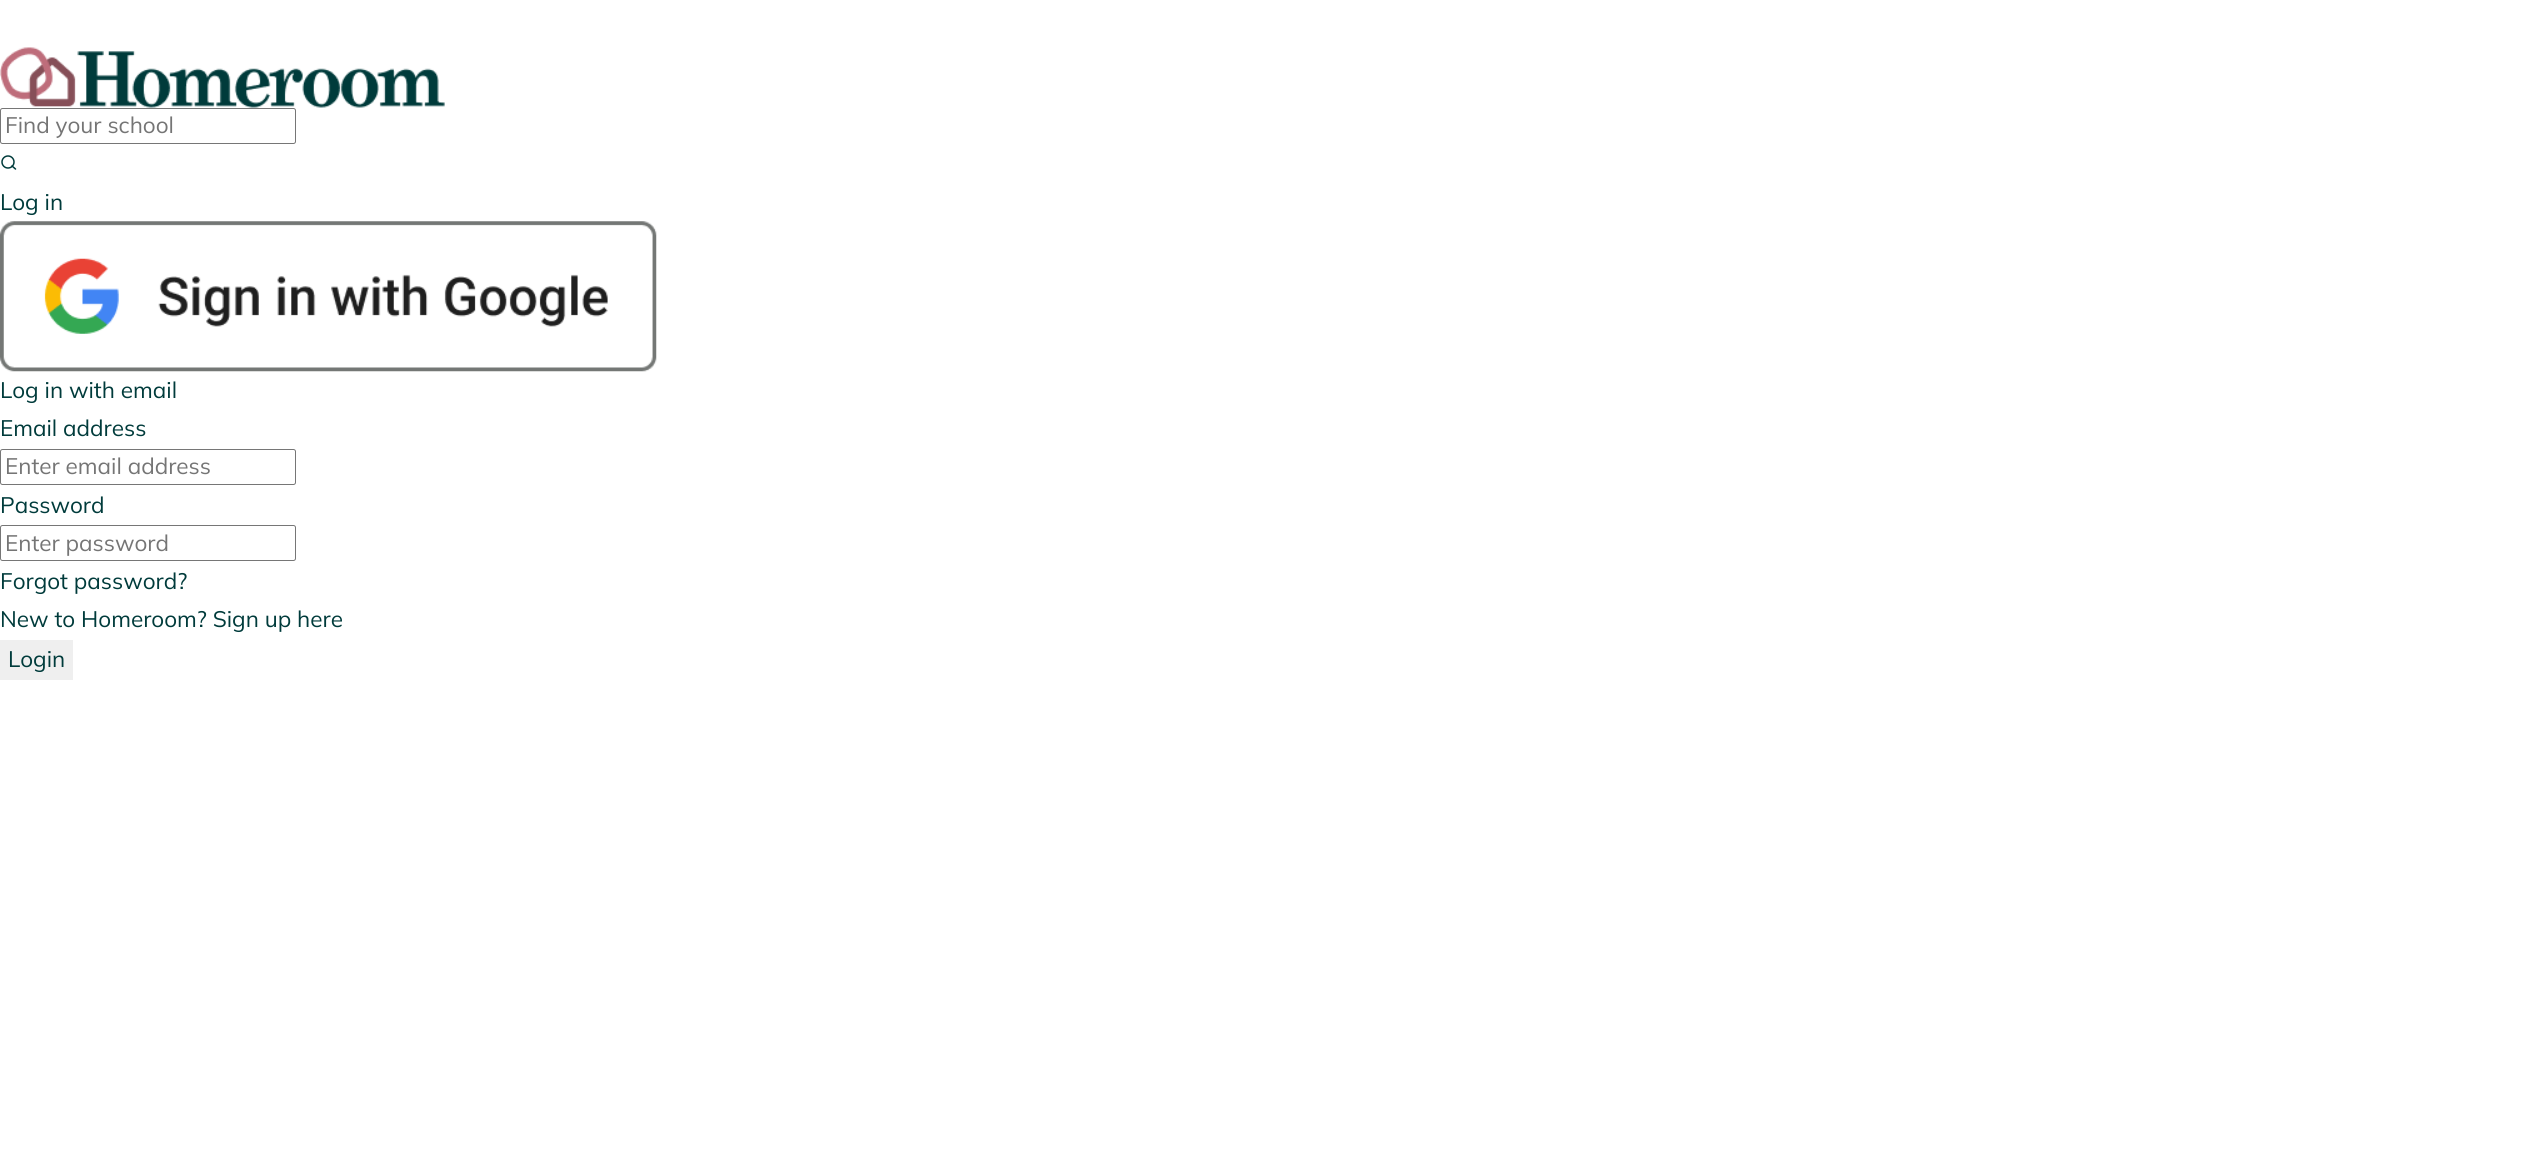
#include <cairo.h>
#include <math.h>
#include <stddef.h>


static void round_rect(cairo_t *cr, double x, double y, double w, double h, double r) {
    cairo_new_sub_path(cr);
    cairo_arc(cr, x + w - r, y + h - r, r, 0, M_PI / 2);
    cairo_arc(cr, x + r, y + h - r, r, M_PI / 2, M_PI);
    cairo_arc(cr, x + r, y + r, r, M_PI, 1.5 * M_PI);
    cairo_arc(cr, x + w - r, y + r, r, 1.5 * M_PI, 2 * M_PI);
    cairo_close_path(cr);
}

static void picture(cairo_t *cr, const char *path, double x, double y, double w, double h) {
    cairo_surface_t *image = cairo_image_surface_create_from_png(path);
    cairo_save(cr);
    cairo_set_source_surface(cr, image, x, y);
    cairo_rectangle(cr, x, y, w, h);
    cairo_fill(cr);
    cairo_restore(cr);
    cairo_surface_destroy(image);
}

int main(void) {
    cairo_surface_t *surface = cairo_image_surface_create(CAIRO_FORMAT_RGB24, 2537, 1156);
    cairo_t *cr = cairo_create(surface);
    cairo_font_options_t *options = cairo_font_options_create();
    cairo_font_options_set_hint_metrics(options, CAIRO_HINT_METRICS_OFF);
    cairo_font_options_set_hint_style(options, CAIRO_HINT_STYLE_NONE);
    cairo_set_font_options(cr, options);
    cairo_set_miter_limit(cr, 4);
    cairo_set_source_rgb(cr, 1, 1, 1);
    cairo_paint(cr);
    picture(cr, "img1.png", 0, 47, 445, 61);
    round_rect(cr, 0.5, 108.5, 295, 35, 2);
    cairo_set_source_rgb(cr, 0.463, 0.463, 0.463);
    cairo_set_line_width(cr, 1);
    cairo_stroke(cr);
    cairo_select_font_face(cr, "Mulish", CAIRO_FONT_SLANT_NORMAL, CAIRO_FONT_WEIGHT_NORMAL);
    cairo_set_font_size(cr, 22.5);
    cairo_set_source_rgb(cr, 0.459, 0.459, 0.459);
    cairo_move_to(cr, 5, 133);
    cairo_show_text(cr, "Find your school");
    cairo_new_path(cr);
    cairo_arc(cr, 8, 162, 6, 0, 2 * M_PI);
    cairo_set_source_rgb(cr, 0, 0.231, 0.231);
    cairo_set_line_width(cr, 1.5);
    cairo_stroke(cr);
    cairo_new_path(cr);
    cairo_move_to(cr, 15.5, 169);
    cairo_line_to(cr, 12, 166);
    cairo_set_line_cap(cr, CAIRO_LINE_CAP_ROUND);
    cairo_set_line_join(cr, CAIRO_LINE_JOIN_ROUND);
    cairo_stroke(cr);
    cairo_move_to(cr, 0, 210);
    cairo_show_text(cr, "Log in");
    picture(cr, "img2.png", 0, 221, 657, 151);
    cairo_move_to(cr, 0, 398);
    cairo_show_text(cr, "Log in with email");
    cairo_move_to(cr, 0, 436);
    cairo_show_text(cr, "Email address");
    round_rect(cr, 0.5, 449.5, 295, 35, 2);
    cairo_set_source_rgb(cr, 0.463, 0.463, 0.463);
    cairo_set_line_width(cr, 1);
    cairo_set_line_cap(cr, CAIRO_LINE_CAP_BUTT);
    cairo_set_line_join(cr, CAIRO_LINE_JOIN_MITER);
    cairo_stroke(cr);
    cairo_set_source_rgb(cr, 0.459, 0.459, 0.459);
    cairo_move_to(cr, 5, 474);
    cairo_show_text(cr, "Enter email address");
    cairo_set_source_rgb(cr, 0, 0.231, 0.231);
    cairo_move_to(cr, 0, 513);
    cairo_show_text(cr, "Password");
    round_rect(cr, 0.5, 525.5, 295, 35, 2);
    cairo_set_source_rgb(cr, 0.463, 0.463, 0.463);
    cairo_stroke(cr);
    cairo_set_source_rgb(cr, 0.459, 0.459, 0.459);
    cairo_move_to(cr, 5, 551);
    cairo_show_text(cr, "Enter password");
    cairo_set_source_rgb(cr, 0, 0.231, 0.231);
    cairo_move_to(cr, 0, 589);
    cairo_show_text(cr, "Forgot password?");
    cairo_move_to(cr, 0, 627);
    cairo_show_text(cr, "New to Homeroom? Sign up here");
    cairo_set_source_rgb(cr, 0.937, 0.937, 0.937);
    cairo_rectangle(cr, 0, 640, 73, 40);
    cairo_fill(cr);
    cairo_set_source_rgb(cr, 0, 0.231, 0.231);
    cairo_move_to(cr, 8, 667);
    cairo_show_text(cr, "Login");
    cairo_surface_write_to_png(surface, "page.png");
    cairo_font_options_destroy(options);
    cairo_destroy(cr);
    cairo_surface_destroy(surface);
    return 0;
}
